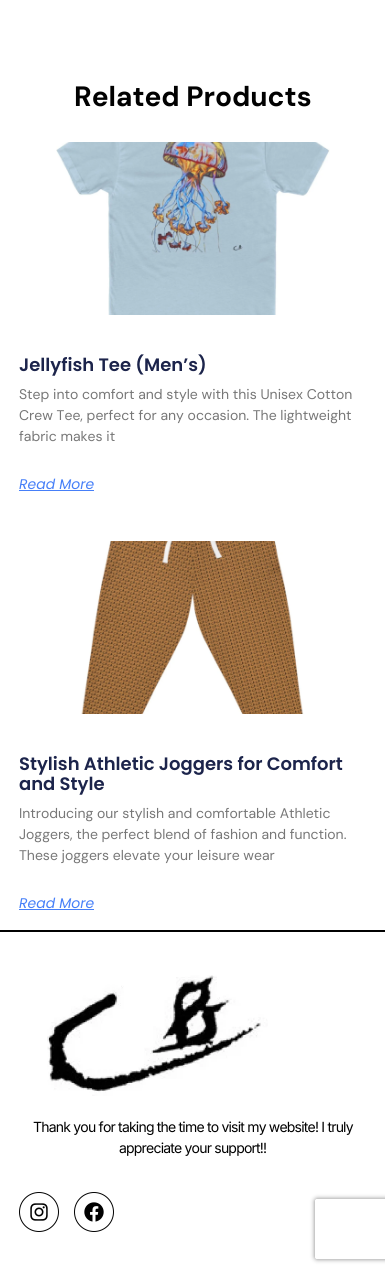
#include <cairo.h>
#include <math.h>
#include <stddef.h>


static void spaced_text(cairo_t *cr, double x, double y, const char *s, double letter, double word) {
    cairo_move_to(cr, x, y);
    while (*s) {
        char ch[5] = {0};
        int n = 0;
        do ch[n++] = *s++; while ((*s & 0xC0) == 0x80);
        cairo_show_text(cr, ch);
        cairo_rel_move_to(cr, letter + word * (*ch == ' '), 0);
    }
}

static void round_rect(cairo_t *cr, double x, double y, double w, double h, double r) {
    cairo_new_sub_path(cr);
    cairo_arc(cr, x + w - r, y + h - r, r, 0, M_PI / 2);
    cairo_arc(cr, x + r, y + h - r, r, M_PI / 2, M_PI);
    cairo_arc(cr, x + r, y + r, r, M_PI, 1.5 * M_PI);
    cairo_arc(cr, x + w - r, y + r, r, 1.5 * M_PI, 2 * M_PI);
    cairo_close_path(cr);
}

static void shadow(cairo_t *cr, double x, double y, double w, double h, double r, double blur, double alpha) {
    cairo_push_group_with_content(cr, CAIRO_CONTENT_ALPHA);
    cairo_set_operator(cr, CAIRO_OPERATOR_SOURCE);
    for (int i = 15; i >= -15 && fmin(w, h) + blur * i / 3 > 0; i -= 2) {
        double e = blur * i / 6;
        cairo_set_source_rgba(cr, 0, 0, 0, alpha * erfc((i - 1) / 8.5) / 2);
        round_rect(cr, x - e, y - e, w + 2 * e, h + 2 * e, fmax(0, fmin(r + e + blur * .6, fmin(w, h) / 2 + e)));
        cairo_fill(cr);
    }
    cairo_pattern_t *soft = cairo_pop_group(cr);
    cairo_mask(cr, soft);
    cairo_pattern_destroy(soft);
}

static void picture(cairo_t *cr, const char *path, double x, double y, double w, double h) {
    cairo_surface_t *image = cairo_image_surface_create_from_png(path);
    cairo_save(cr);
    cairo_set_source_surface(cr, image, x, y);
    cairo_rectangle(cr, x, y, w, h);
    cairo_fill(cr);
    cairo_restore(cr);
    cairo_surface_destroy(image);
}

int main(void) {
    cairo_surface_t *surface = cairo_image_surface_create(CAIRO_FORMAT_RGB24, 385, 1273);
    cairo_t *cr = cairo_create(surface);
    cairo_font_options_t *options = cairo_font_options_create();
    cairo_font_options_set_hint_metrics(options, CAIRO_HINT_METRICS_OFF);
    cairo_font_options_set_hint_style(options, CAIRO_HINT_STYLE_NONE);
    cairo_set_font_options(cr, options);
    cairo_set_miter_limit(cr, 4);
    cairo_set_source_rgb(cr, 1, 1, 1);
    cairo_paint(cr);
    cairo_select_font_face(cr, "DM Sans", CAIRO_FONT_SLANT_NORMAL, CAIRO_FONT_WEIGHT_BOLD);
    cairo_set_font_size(cr, 28);
    cairo_set_source_rgb(cr, 0.004, 0.004, 0.004);
    cairo_move_to(cr, 74, 106);
    cairo_show_text(cr, "Related Products");
    picture(cr, "img1.png", 56, 142, 274, 173);
    cairo_select_font_face(cr, "Poppins SemiBold", CAIRO_FONT_SLANT_NORMAL, CAIRO_FONT_WEIGHT_NORMAL);
    cairo_set_font_size(cr, 18);
    cairo_set_source_rgb(cr, 0.11, 0.141, 0.294);
    cairo_move_to(cr, 19, 371);
    cairo_show_text(cr, "Jellyfish Tee (Men’s)");
    cairo_select_font_face(cr, "DM Sans", CAIRO_FONT_SLANT_NORMAL, CAIRO_FONT_WEIGHT_NORMAL);
    cairo_set_font_size(cr, 14);
    cairo_set_source_rgb(cr, 0.467, 0.467, 0.467);
    cairo_move_to(cr, 19, 399);
    cairo_show_text(cr, "Step into comfort and style with this Unisex Cotton");
    cairo_move_to(cr, 19, 420);
    cairo_show_text(cr, "Crew Tee, perfect for any occasion. The lightweight");
    cairo_move_to(cr, 19, 441);
    cairo_show_text(cr, "fabric makes it");
    cairo_select_font_face(cr, "Poppins", CAIRO_FONT_SLANT_ITALIC, CAIRO_FONT_WEIGHT_NORMAL);
    cairo_set_source_rgb(cr, 0.275, 0.498, 0.969);
    cairo_move_to(cr, 19, 489);
    cairo_show_text(cr, "Read More");
    cairo_rectangle(cr, 19, 490, 75, 1);
    cairo_fill(cr);
    picture(cr, "img2.png", 81, 541, 223, 173);
    cairo_select_font_face(cr, "Poppins SemiBold", CAIRO_FONT_SLANT_NORMAL, CAIRO_FONT_WEIGHT_NORMAL);
    cairo_set_font_size(cr, 18);
    cairo_set_source_rgb(cr, 0.11, 0.141, 0.294);
    cairo_move_to(cr, 19, 770);
    cairo_show_text(cr, "Stylish Athletic Joggers for Comfort");
    cairo_move_to(cr, 19, 790);
    cairo_show_text(cr, "and Style");
    cairo_select_font_face(cr, "DM Sans", CAIRO_FONT_SLANT_NORMAL, CAIRO_FONT_WEIGHT_NORMAL);
    cairo_set_font_size(cr, 14);
    cairo_set_source_rgb(cr, 0.467, 0.467, 0.467);
    cairo_move_to(cr, 19, 818);
    cairo_show_text(cr, "Introducing our stylish and comfortable Athletic");
    cairo_move_to(cr, 19, 839);
    cairo_show_text(cr, "Joggers, the perfect blend of fashion and function.");
    cairo_move_to(cr, 19, 860);
    cairo_show_text(cr, "These joggers elevate your leisure wear");
    cairo_select_font_face(cr, "Poppins", CAIRO_FONT_SLANT_ITALIC, CAIRO_FONT_WEIGHT_NORMAL);
    cairo_set_source_rgb(cr, 0.275, 0.498, 0.969);
    cairo_move_to(cr, 19, 908);
    cairo_show_text(cr, "Read More");
    cairo_rectangle(cr, 19, 909, 75, 1);
    cairo_fill(cr);
    cairo_set_source_rgb(cr, 0.004, 0.004, 0.004);
    cairo_rectangle(cr, 0, 930, 385, 2);
    cairo_fill(cr);
    picture(cr, "img3.png", 47, 975, 221, 121);
    cairo_select_font_face(cr, "Inter", CAIRO_FONT_SLANT_NORMAL, CAIRO_FONT_WEIGHT_NORMAL);
    spaced_text(cr, 33, 1132, "Thank you for taking the time to visit my website! I truly", -0.8, 0);
    spaced_text(cr, 119, 1153, "appreciate your support!!", -0.8, 0);
    cairo_new_path(cr);
    cairo_arc(cr, 39, 1212, 19.5, 0, 2 * M_PI);
    cairo_set_line_width(cr, 1);
    cairo_stroke(cr);
    picture(cr, "img4.png", 30, 1203, 18, 18);
    cairo_arc(cr, 94, 1212, 19.5, 0, 2 * M_PI);
    cairo_stroke(cr);
    picture(cr, "img5.png", 84, 1202, 20, 20);
    cairo_save(cr);
    cairo_set_fill_rule(cr, CAIRO_FILL_RULE_EVEN_ODD);
    cairo_new_path(cr);
    cairo_move_to(cr, 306, 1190);
    cairo_line_to(cr, 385, 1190);
    cairo_line_to(cr, 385, 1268);
    cairo_line_to(cr, 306, 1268);
    cairo_close_path(cr);
    cairo_move_to(cr, 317, 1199);
    cairo_line_to(cr, 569, 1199);
    cairo_curve_to(cr, 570, 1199, 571, 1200, 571, 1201);
    cairo_line_to(cr, 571, 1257);
    cairo_curve_to(cr, 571, 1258, 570, 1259, 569, 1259);
    cairo_line_to(cr, 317, 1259);
    cairo_curve_to(cr, 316, 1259, 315, 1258, 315, 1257);
    cairo_line_to(cr, 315, 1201);
    cairo_curve_to(cr, 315, 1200, 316, 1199, 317, 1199);
    cairo_close_path(cr);
    cairo_clip(cr);
    cairo_set_source_rgb(cr, 0.502, 0.502, 0.502);
    shadow(cr, 315, 1199, 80, 60, 2, 2.5, 1);
    cairo_restore(cr);
    cairo_surface_write_to_png(surface, "page.png");
    cairo_font_options_destroy(options);
    cairo_destroy(cr);
    cairo_surface_destroy(surface);
    return 0;
}
